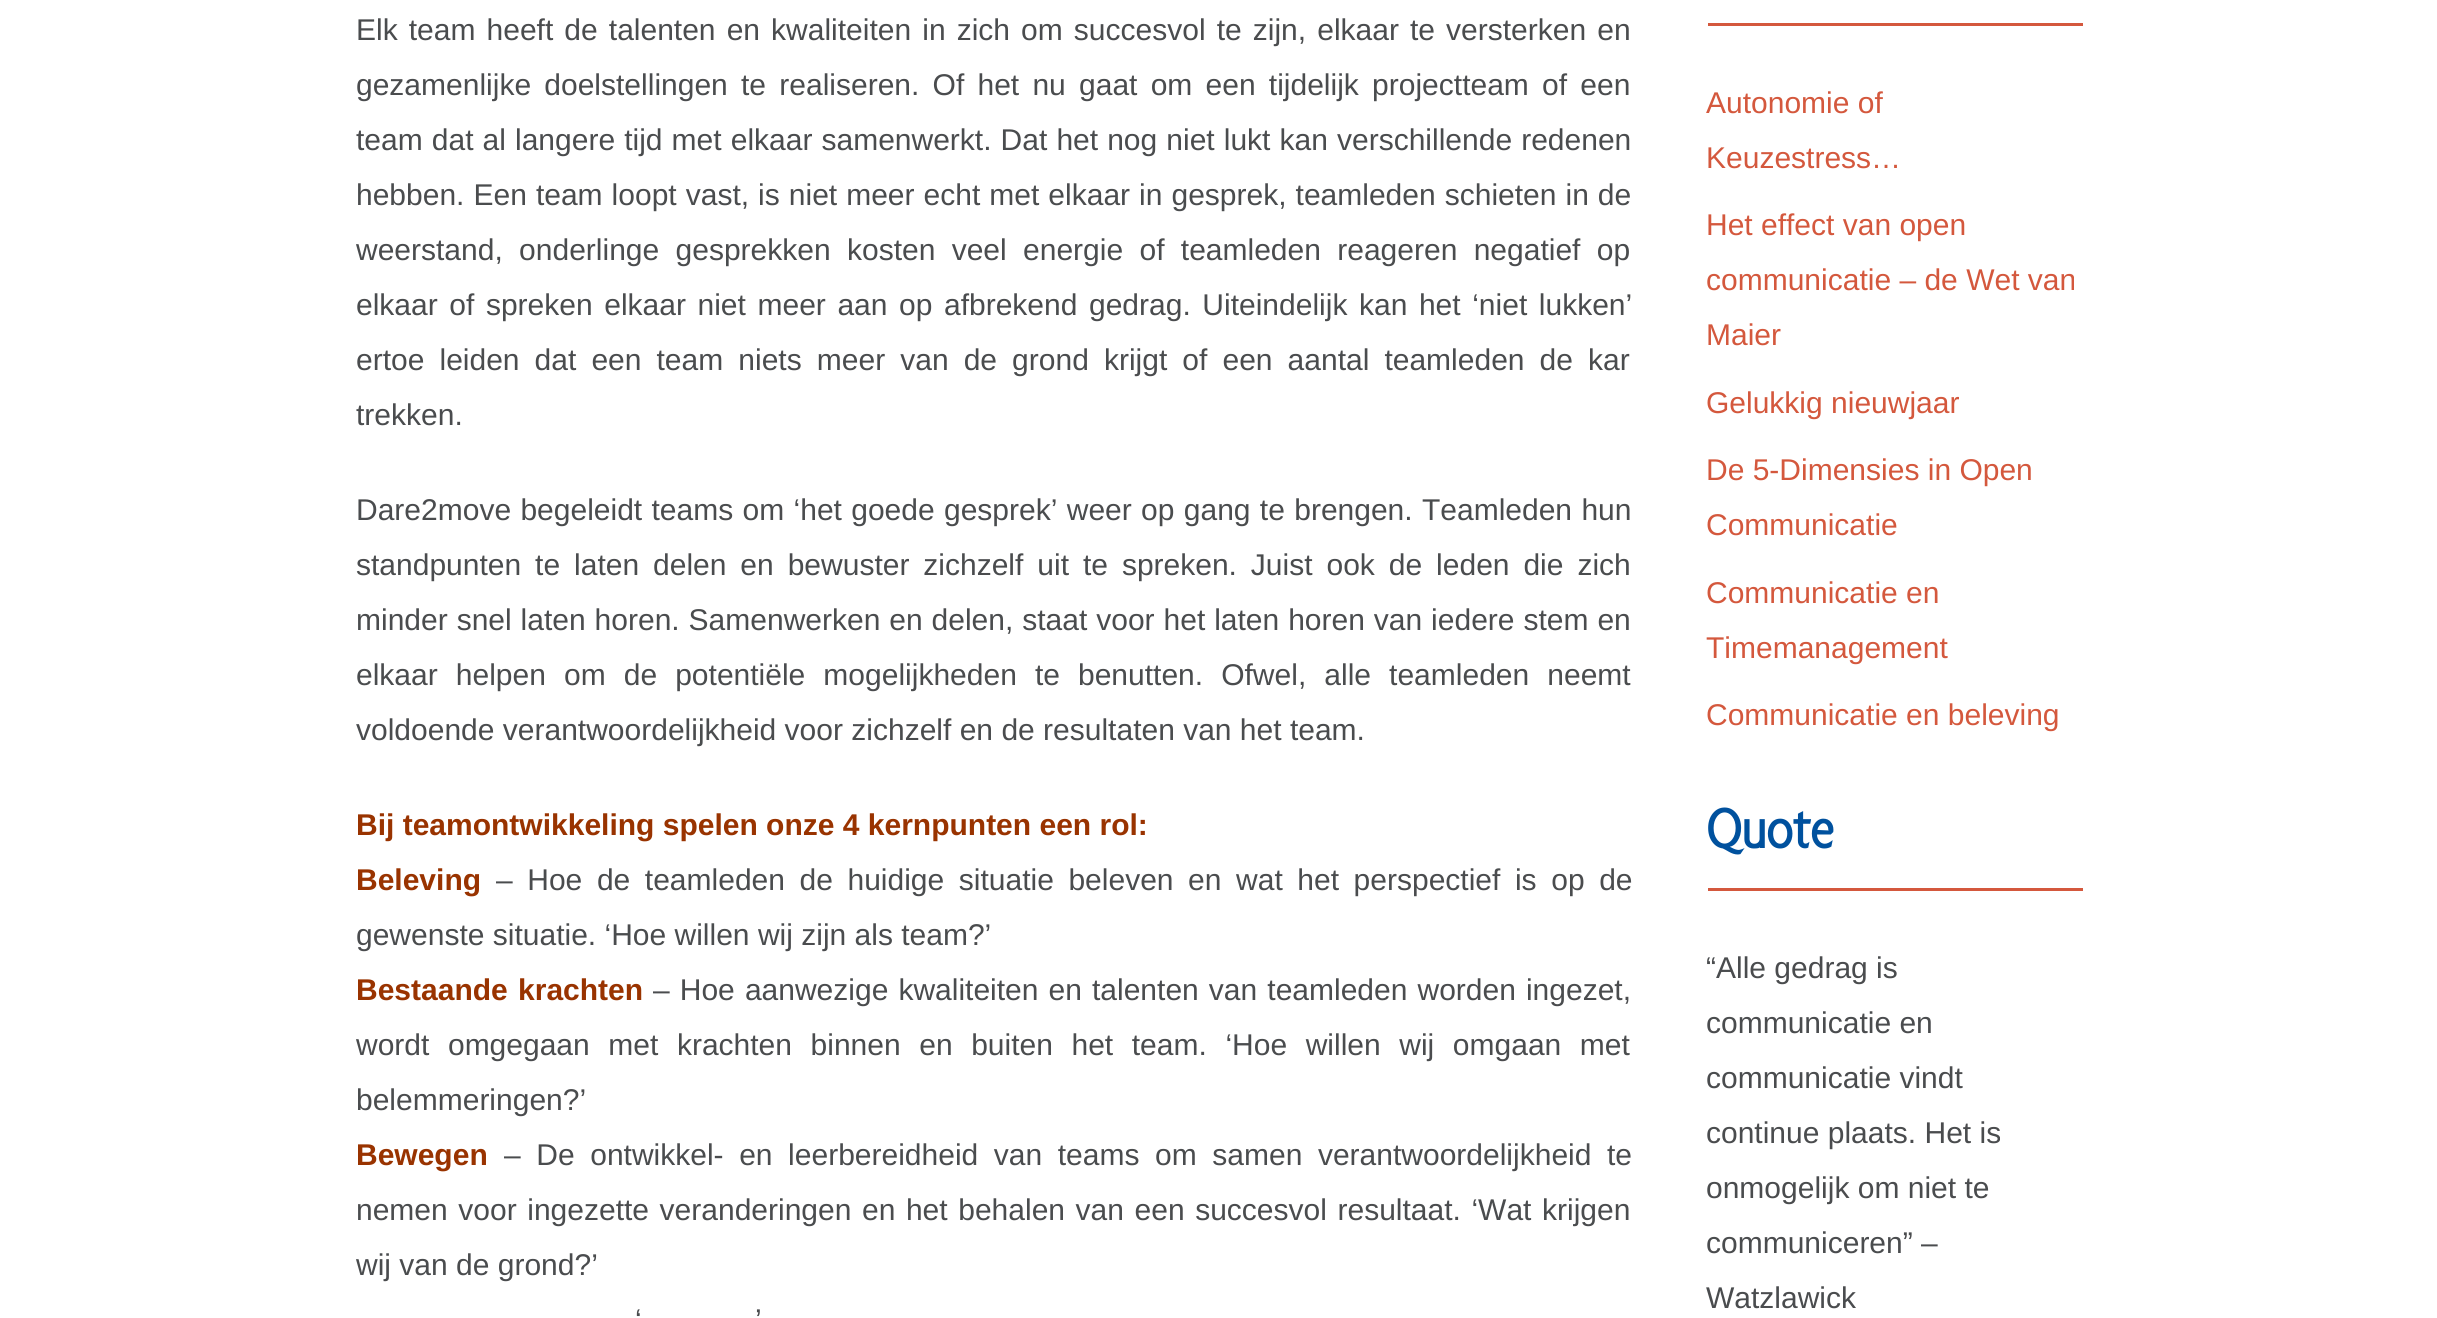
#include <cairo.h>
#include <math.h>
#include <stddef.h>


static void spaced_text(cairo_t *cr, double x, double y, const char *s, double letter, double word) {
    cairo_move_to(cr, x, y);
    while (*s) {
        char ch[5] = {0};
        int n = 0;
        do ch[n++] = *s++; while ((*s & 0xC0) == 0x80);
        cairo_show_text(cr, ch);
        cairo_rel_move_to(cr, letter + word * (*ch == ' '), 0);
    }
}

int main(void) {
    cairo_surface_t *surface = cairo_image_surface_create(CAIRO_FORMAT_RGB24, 2437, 1318);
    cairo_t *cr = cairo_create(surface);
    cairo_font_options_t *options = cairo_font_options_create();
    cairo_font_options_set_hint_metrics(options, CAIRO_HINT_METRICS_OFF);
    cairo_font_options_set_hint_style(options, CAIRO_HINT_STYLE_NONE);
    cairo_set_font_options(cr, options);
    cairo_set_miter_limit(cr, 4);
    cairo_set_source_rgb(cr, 1, 1, 1);
    cairo_paint(cr);
    cairo_select_font_face(cr, "Liberation Sans", CAIRO_FONT_SLANT_NORMAL, CAIRO_FONT_WEIGHT_NORMAL);
    cairo_set_font_size(cr, 30);
    cairo_set_source_rgb(cr, 0.29, 0.298, 0.306);
    spaced_text(cr, 356, 40, "Elk team heeft de talenten en kwaliteiten in zich om succesvol te zijn, elkaar te versterken en", 0, 2.75);
    spaced_text(cr, 356, 95, "gezamenlijke doelstellingen te realiseren. Of het nu gaat om een tijdelijk projectteam of een", 0, 4.9);
    spaced_text(cr, 356, 150, "team dat al langere tijd met elkaar samenwerkt. Dat het nog niet lukt kan verschillende redenen", 0, 0.75);
    spaced_text(cr, 356, 205, "hebben. Een team loopt vast, is niet meer echt met elkaar in gesprek, teamleden schieten in de", 0, 0.7);
    spaced_text(cr, 356, 260, "weerstand, onderlinge gesprekken kosten veel energie of teamleden reageren negatief op", 0, 8);
    spaced_text(cr, 356, 315, "elkaar of spreken elkaar niet meer aan op afbrekend gedrag. Uiteindelijk kan het ‘niet lukken’", 0, 3.25);
    spaced_text(cr, 356, 370, "ertoe leiden dat een team niets meer van de grond krijgt of een aantal teamleden de kar", 0, 6.75);
    cairo_move_to(cr, 356, 425);
    cairo_show_text(cr, "trekken.");
    spaced_text(cr, 356, 520, "Dare2move begeleidt teams om ‘het goede gesprek’ weer op gang te brengen. Teamleden hun", 0, 1);
    spaced_text(cr, 356, 575, "standpunten te laten delen en bewuster zichzelf uit te spreken. Juist ook de leden die zich", 0, 5.6);
    spaced_text(cr, 356, 630, "minder snel laten horen. Samenwerken en delen, staat voor het laten horen van iedere stem en", 0, 0.6);
    spaced_text(cr, 356, 685, "elkaar helpen om de potentiële mogelijkheden te benutten. Ofwel, alle teamleden neemt", 0, 9.75);
    cairo_move_to(cr, 356, 740);
    cairo_show_text(cr, "voldoende verantwoordelijkheid voor zichzelf en de resultaten van het team.");
    cairo_select_font_face(cr, "Liberation Sans", CAIRO_FONT_SLANT_NORMAL, CAIRO_FONT_WEIGHT_BOLD);
    cairo_set_source_rgb(cr, 0.6, 0.2, 0);
    cairo_move_to(cr, 356, 835);
    cairo_show_text(cr, "Bij teamontwikkeling spelen onze 4 kernpunten een rol:");
    cairo_move_to(cr, 356, 890);
    cairo_show_text(cr, "Beleving");
    cairo_select_font_face(cr, "Liberation Sans", CAIRO_FONT_SLANT_NORMAL, CAIRO_FONT_WEIGHT_NORMAL);
    cairo_set_source_rgb(cr, 0.29, 0.298, 0.306);
    spaced_text(cr, 496, 890, "– Hoe de teamleden de huidige situatie beleven en wat het perspectief is op de", 0, 6.25);
    cairo_move_to(cr, 356, 945);
    cairo_show_text(cr, "gewenste situatie. ‘Hoe willen wij zijn als team?’");
    cairo_select_font_face(cr, "Liberation Sans", CAIRO_FONT_SLANT_NORMAL, CAIRO_FONT_WEIGHT_BOLD);
    cairo_set_source_rgb(cr, 0.6, 0.2, 0);
    spaced_text(cr, 356, 1000, "Bestaande krachten", 0, 2);
    cairo_select_font_face(cr, "Liberation Sans", CAIRO_FONT_SLANT_NORMAL, CAIRO_FONT_WEIGHT_NORMAL);
    cairo_set_source_rgb(cr, 0.29, 0.298, 0.306);
    spaced_text(cr, 653, 1000, "– Hoe aanwezige kwaliteiten en talenten van teamleden worden ingezet,", 0, 1.75);
    spaced_text(cr, 356, 1055, "wordt omgegaan met krachten binnen en buiten het team. ‘Hoe willen wij omgaan met", 0, 10.25);
    cairo_move_to(cr, 356, 1110);
    cairo_show_text(cr, "belemmeringen?’");
    cairo_select_font_face(cr, "Liberation Sans", CAIRO_FONT_SLANT_NORMAL, CAIRO_FONT_WEIGHT_BOLD);
    cairo_set_source_rgb(cr, 0.6, 0.2, 0);
    cairo_move_to(cr, 356, 1165);
    cairo_show_text(cr, "Bewegen");
    cairo_select_font_face(cr, "Liberation Sans", CAIRO_FONT_SLANT_NORMAL, CAIRO_FONT_WEIGHT_NORMAL);
    cairo_set_source_rgb(cr, 0.29, 0.298, 0.306);
    spaced_text(cr, 504, 1165, "– De ontwikkel- en leerbereidheid van teams om samen verantwoordelijkheid te", 0, 7.25);
    spaced_text(cr, 356, 1220, "nemen voor ingezette veranderingen en het behalen van een succesvol resultaat. ‘Wat krijgen", 0, 2.25);
    cairo_move_to(cr, 356, 1275);
    cairo_show_text(cr, "wij van de grond?’");
    spaced_text(cr, 635, 1330, "‘", 0, 4);
    spaced_text(cr, 755, 1330, "’", 0, 4);
    cairo_set_source_rgb(cr, 0.831, 0.345, 0.239);
    cairo_rectangle(cr, 1708, 23, 375, 3);
    cairo_fill(cr);
    cairo_move_to(cr, 1706, 113);
    cairo_show_text(cr, "Autonomie of");
    cairo_move_to(cr, 1706, 168);
    cairo_show_text(cr, "Keuzestress…");
    cairo_move_to(cr, 1706, 235);
    cairo_show_text(cr, "Het effect van open");
    cairo_move_to(cr, 1706, 290);
    cairo_show_text(cr, "communicatie – de Wet van");
    cairo_move_to(cr, 1706, 345);
    cairo_show_text(cr, "Maier");
    cairo_move_to(cr, 1706, 413);
    cairo_show_text(cr, "Gelukkig nieuwjaar");
    cairo_move_to(cr, 1706, 480);
    cairo_show_text(cr, "De 5-Dimensies in Open");
    cairo_move_to(cr, 1706, 535);
    cairo_show_text(cr, "Communicatie");
    cairo_move_to(cr, 1706, 603);
    cairo_show_text(cr, "Communicatie en");
    cairo_move_to(cr, 1706, 658);
    cairo_show_text(cr, "Timemanagement");
    cairo_move_to(cr, 1706, 725);
    cairo_show_text(cr, "Communicatie en beleving");
    cairo_rectangle(cr, 1708, 888, 375, 3);
    cairo_fill(cr);
    cairo_select_font_face(cr, "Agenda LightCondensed", CAIRO_FONT_SLANT_NORMAL, CAIRO_FONT_WEIGHT_BOLD);
    cairo_set_font_size(cr, 60);
    cairo_set_source_rgb(cr, 0, 0.318, 0.62);
    cairo_move_to(cr, 1706, 848);
    cairo_show_text(cr, "Quote");
    cairo_select_font_face(cr, "Liberation Sans", CAIRO_FONT_SLANT_NORMAL, CAIRO_FONT_WEIGHT_NORMAL);
    cairo_set_font_size(cr, 30);
    cairo_set_source_rgb(cr, 0.29, 0.298, 0.306);
    cairo_move_to(cr, 1706, 978);
    cairo_show_text(cr, "“Alle gedrag is");
    cairo_move_to(cr, 1706, 1033);
    cairo_show_text(cr, "communicatie en");
    cairo_move_to(cr, 1706, 1088);
    cairo_show_text(cr, "communicatie vindt");
    cairo_move_to(cr, 1706, 1143);
    cairo_show_text(cr, "continue plaats. Het is");
    cairo_move_to(cr, 1706, 1198);
    cairo_show_text(cr, "onmogelijk om niet te");
    cairo_move_to(cr, 1706, 1253);
    cairo_show_text(cr, "communiceren” –");
    cairo_move_to(cr, 1706, 1308);
    cairo_show_text(cr, "Watzlawick");
    cairo_surface_write_to_png(surface, "page.png");
    cairo_font_options_destroy(options);
    cairo_destroy(cr);
    cairo_surface_destroy(surface);
    return 0;
}
